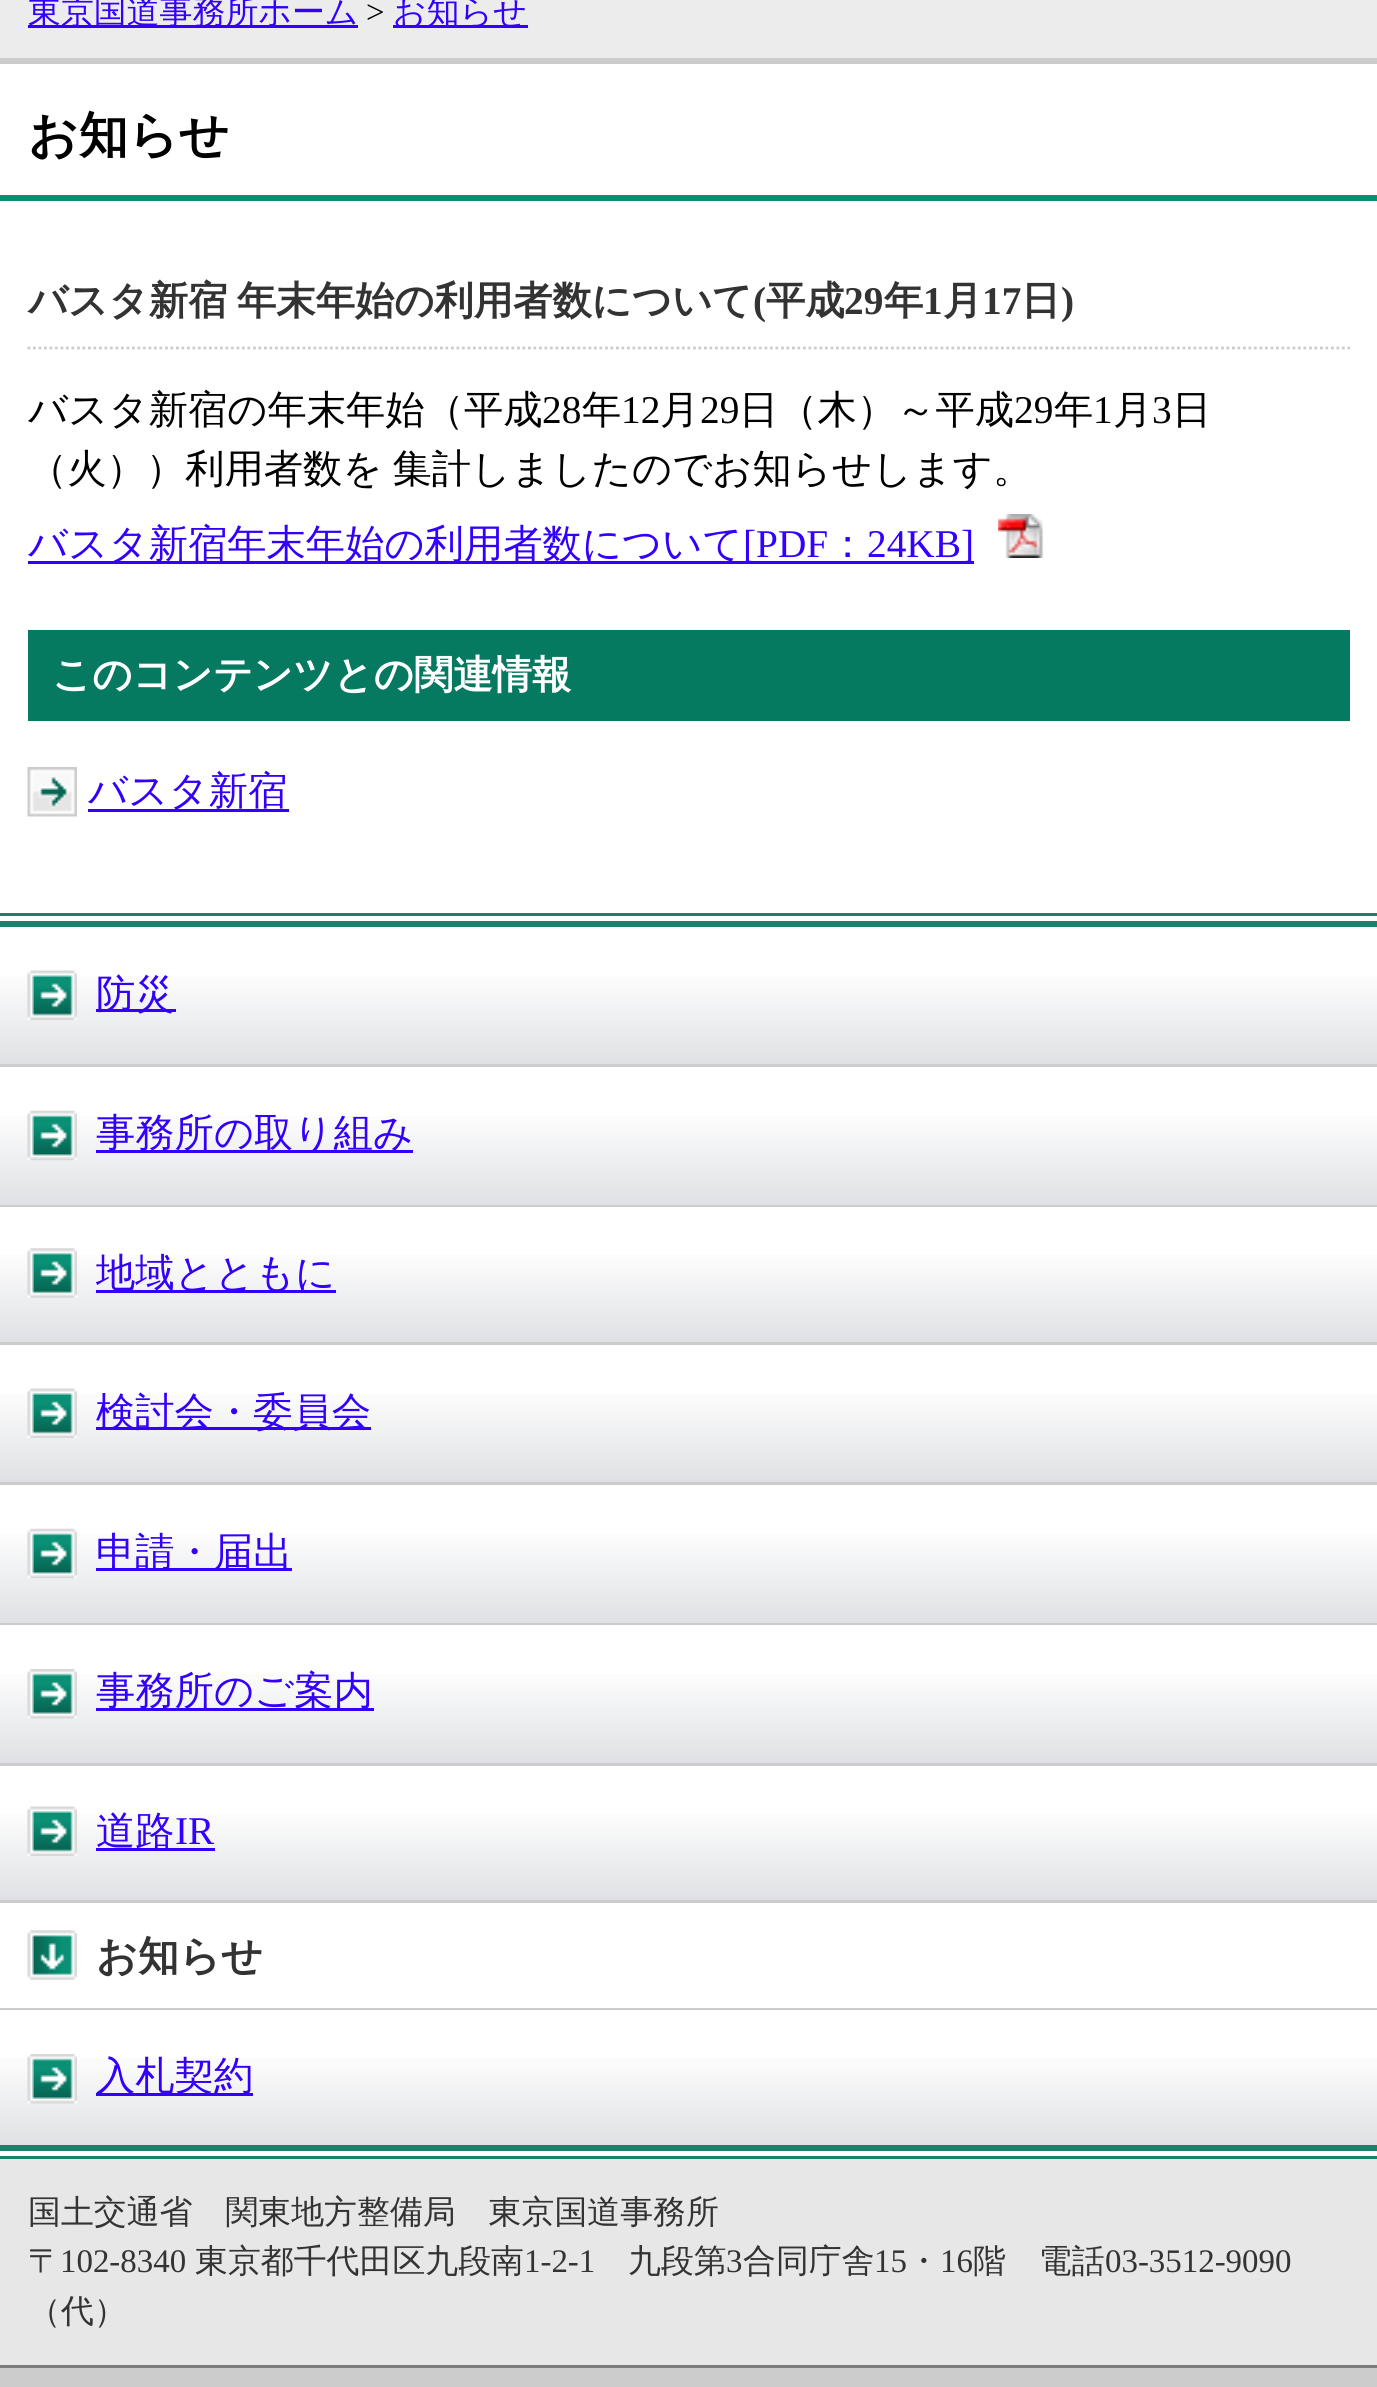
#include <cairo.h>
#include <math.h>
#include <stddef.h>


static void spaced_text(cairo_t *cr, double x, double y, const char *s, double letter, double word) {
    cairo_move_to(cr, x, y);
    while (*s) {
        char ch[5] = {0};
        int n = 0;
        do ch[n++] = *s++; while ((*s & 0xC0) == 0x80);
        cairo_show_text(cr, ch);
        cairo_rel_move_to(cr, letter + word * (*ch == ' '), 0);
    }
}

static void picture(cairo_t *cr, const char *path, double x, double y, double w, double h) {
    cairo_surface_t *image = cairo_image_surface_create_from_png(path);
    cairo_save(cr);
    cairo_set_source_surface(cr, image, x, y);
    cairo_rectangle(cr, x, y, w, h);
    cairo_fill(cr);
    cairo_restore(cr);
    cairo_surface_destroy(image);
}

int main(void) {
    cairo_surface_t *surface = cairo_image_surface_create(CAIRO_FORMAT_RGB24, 1377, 2387);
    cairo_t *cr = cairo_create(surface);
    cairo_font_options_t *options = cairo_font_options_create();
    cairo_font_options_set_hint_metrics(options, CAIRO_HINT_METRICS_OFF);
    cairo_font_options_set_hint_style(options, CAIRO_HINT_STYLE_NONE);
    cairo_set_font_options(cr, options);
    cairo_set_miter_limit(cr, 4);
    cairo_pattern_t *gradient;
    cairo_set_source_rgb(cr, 1, 1, 1);
    cairo_paint(cr);
    cairo_set_source_rgb(cr, 0.922, 0.922, 0.922);
    cairo_rectangle(cr, 0, 0, 1377, 58);
    cairo_fill(cr);
    cairo_set_source_rgb(cr, 0.2, 0, 1);
    cairo_rectangle(cr, 28, 25, 330, 3);
    cairo_fill(cr);
    cairo_select_font_face(cr, "WenQuanYi Zen Hei Medium", CAIRO_FONT_SLANT_NORMAL, CAIRO_FONT_WEIGHT_NORMAL);
    cairo_set_font_size(cr, 32.9);
    cairo_move_to(cr, 28, 23);
    cairo_show_text(cr, "東京国道事務所ホーム");
    cairo_select_font_face(cr, "Liberation Serif", CAIRO_FONT_SLANT_NORMAL, CAIRO_FONT_WEIGHT_NORMAL);
    cairo_set_source_rgb(cr, 0, 0, 0);
    cairo_move_to(cr, 366, 23);
    cairo_show_text(cr, ">");
    cairo_set_source_rgb(cr, 0.2, 0, 1);
    cairo_rectangle(cr, 393, 25, 135, 3);
    cairo_fill(cr);
    cairo_select_font_face(cr, "WenQuanYi Zen Hei Medium", CAIRO_FONT_SLANT_NORMAL, CAIRO_FONT_WEIGHT_NORMAL);
    cairo_move_to(cr, 393, 23);
    cairo_show_text(cr, "お知らせ");
    cairo_set_source_rgb(cr, 0.8, 0.8, 0.8);
    cairo_rectangle(cr, 0, 58, 1377, 6);
    cairo_fill(cr);
    cairo_set_source_rgb(cr, 0.035, 0.565, 0.459);
    cairo_rectangle(cr, 0, 195, 1377, 6);
    cairo_fill(cr);
    cairo_select_font_face(cr, "WenQuanYi Zen Hei", CAIRO_FONT_SLANT_NORMAL, CAIRO_FONT_WEIGHT_BOLD);
    cairo_set_font_size(cr, 49.5);
    cairo_set_source_rgb(cr, 0, 0, 0);
    cairo_move_to(cr, 28, 152);
    cairo_show_text(cr, "お知らせ");
    cairo_new_path(cr);
    cairo_move_to(cr, 27.5, 348);
    cairo_line_to(cr, 1350, 348);
    cairo_set_source_rgb(cr, 0.8, 0.8, 0.8);
    cairo_set_line_width(cr, 2.8);
    cairo_set_dash(cr, (double[]){2.75, 2.75}, 2, 0);
    cairo_stroke(cr);
    cairo_set_font_size(cr, 39.3);
    cairo_set_source_rgb(cr, 0.2, 0.2, 0.2);
    spaced_text(cr, 28, 314, "バスタ新宿 年末年始の利用者数について", 0, -2);
    cairo_select_font_face(cr, "Liberation Serif", CAIRO_FONT_SLANT_NORMAL, CAIRO_FONT_WEIGHT_BOLD);
    cairo_move_to(cr, 753, 314);
    cairo_show_text(cr, "(");
    cairo_select_font_face(cr, "WenQuanYi Zen Hei", CAIRO_FONT_SLANT_NORMAL, CAIRO_FONT_WEIGHT_BOLD);
    cairo_move_to(cr, 766, 314);
    cairo_show_text(cr, "平成");
    cairo_select_font_face(cr, "Liberation Serif", CAIRO_FONT_SLANT_NORMAL, CAIRO_FONT_WEIGHT_BOLD);
    cairo_move_to(cr, 844, 314);
    cairo_show_text(cr, "29");
    cairo_select_font_face(cr, "WenQuanYi Zen Hei", CAIRO_FONT_SLANT_NORMAL, CAIRO_FONT_WEIGHT_BOLD);
    cairo_move_to(cr, 884, 314);
    cairo_show_text(cr, "年");
    cairo_select_font_face(cr, "Liberation Serif", CAIRO_FONT_SLANT_NORMAL, CAIRO_FONT_WEIGHT_BOLD);
    cairo_move_to(cr, 923, 314);
    cairo_show_text(cr, "1");
    cairo_select_font_face(cr, "WenQuanYi Zen Hei", CAIRO_FONT_SLANT_NORMAL, CAIRO_FONT_WEIGHT_BOLD);
    cairo_move_to(cr, 943, 314);
    cairo_show_text(cr, "月");
    cairo_select_font_face(cr, "Liberation Serif", CAIRO_FONT_SLANT_NORMAL, CAIRO_FONT_WEIGHT_BOLD);
    cairo_move_to(cr, 982, 314);
    cairo_show_text(cr, "17");
    cairo_select_font_face(cr, "WenQuanYi Zen Hei", CAIRO_FONT_SLANT_NORMAL, CAIRO_FONT_WEIGHT_BOLD);
    cairo_move_to(cr, 1021, 314);
    cairo_show_text(cr, "日");
    cairo_select_font_face(cr, "Liberation Serif", CAIRO_FONT_SLANT_NORMAL, CAIRO_FONT_WEIGHT_BOLD);
    cairo_move_to(cr, 1061, 314);
    cairo_show_text(cr, ")");
    cairo_select_font_face(cr, "WenQuanYi Zen Hei Medium", CAIRO_FONT_SLANT_NORMAL, CAIRO_FONT_WEIGHT_NORMAL);
    cairo_set_source_rgb(cr, 0, 0, 0);
    cairo_move_to(cr, 28, 423);
    cairo_show_text(cr, "バスタ新宿の年末年始（平成");
    cairo_select_font_face(cr, "Liberation Serif", CAIRO_FONT_SLANT_NORMAL, CAIRO_FONT_WEIGHT_NORMAL);
    cairo_move_to(cr, 542, 423);
    cairo_show_text(cr, "28");
    cairo_select_font_face(cr, "WenQuanYi Zen Hei Medium", CAIRO_FONT_SLANT_NORMAL, CAIRO_FONT_WEIGHT_NORMAL);
    cairo_move_to(cr, 582, 423);
    cairo_show_text(cr, "年");
    cairo_select_font_face(cr, "Liberation Serif", CAIRO_FONT_SLANT_NORMAL, CAIRO_FONT_WEIGHT_NORMAL);
    cairo_move_to(cr, 621, 423);
    cairo_show_text(cr, "12");
    cairo_select_font_face(cr, "WenQuanYi Zen Hei Medium", CAIRO_FONT_SLANT_NORMAL, CAIRO_FONT_WEIGHT_NORMAL);
    cairo_move_to(cr, 660, 423);
    cairo_show_text(cr, "月");
    cairo_select_font_face(cr, "Liberation Serif", CAIRO_FONT_SLANT_NORMAL, CAIRO_FONT_WEIGHT_NORMAL);
    cairo_move_to(cr, 700, 423);
    cairo_show_text(cr, "29");
    cairo_select_font_face(cr, "WenQuanYi Zen Hei Medium", CAIRO_FONT_SLANT_NORMAL, CAIRO_FONT_WEIGHT_NORMAL);
    cairo_move_to(cr, 739, 423);
    cairo_show_text(cr, "日（木）～平成");
    cairo_select_font_face(cr, "Liberation Serif", CAIRO_FONT_SLANT_NORMAL, CAIRO_FONT_WEIGHT_NORMAL);
    cairo_move_to(cr, 1014, 423);
    cairo_show_text(cr, "29");
    cairo_select_font_face(cr, "WenQuanYi Zen Hei Medium", CAIRO_FONT_SLANT_NORMAL, CAIRO_FONT_WEIGHT_NORMAL);
    cairo_move_to(cr, 1054, 423);
    cairo_show_text(cr, "年");
    cairo_select_font_face(cr, "Liberation Serif", CAIRO_FONT_SLANT_NORMAL, CAIRO_FONT_WEIGHT_NORMAL);
    cairo_move_to(cr, 1093, 423);
    cairo_show_text(cr, "1");
    cairo_select_font_face(cr, "WenQuanYi Zen Hei Medium", CAIRO_FONT_SLANT_NORMAL, CAIRO_FONT_WEIGHT_NORMAL);
    cairo_move_to(cr, 1113, 423);
    cairo_show_text(cr, "月");
    cairo_select_font_face(cr, "Liberation Serif", CAIRO_FONT_SLANT_NORMAL, CAIRO_FONT_WEIGHT_NORMAL);
    cairo_move_to(cr, 1152, 423);
    cairo_show_text(cr, "3");
    cairo_select_font_face(cr, "WenQuanYi Zen Hei Medium", CAIRO_FONT_SLANT_NORMAL, CAIRO_FONT_WEIGHT_NORMAL);
    cairo_move_to(cr, 1172, 423);
    cairo_show_text(cr, "日");
    spaced_text(cr, 28, 482, "（火））利用者数を 集計しましたのでお知らせします。", 0, -2);
    cairo_set_source_rgb(cr, 0.2, 0, 1);
    cairo_rectangle(cr, 28, 561, 946, 3);
    cairo_fill(cr);
    cairo_move_to(cr, 28, 557);
    cairo_show_text(cr, "バスタ新宿年末年始の利用者数について");
    cairo_select_font_face(cr, "Liberation Serif", CAIRO_FONT_SLANT_NORMAL, CAIRO_FONT_WEIGHT_NORMAL);
    cairo_move_to(cr, 743, 557);
    cairo_show_text(cr, "[PDF");
    cairo_select_font_face(cr, "WenQuanYi Zen Hei Medium", CAIRO_FONT_SLANT_NORMAL, CAIRO_FONT_WEIGHT_NORMAL);
    cairo_move_to(cr, 828, 557);
    cairo_show_text(cr, "：");
    cairo_select_font_face(cr, "Liberation Serif", CAIRO_FONT_SLANT_NORMAL, CAIRO_FONT_WEIGHT_NORMAL);
    cairo_move_to(cr, 867, 557);
    cairo_show_text(cr, "24KB]");
    picture(cr, "img1.png", 998, 514, 46, 44);
    cairo_set_source_rgb(cr, 0.027, 0.475, 0.38);
    cairo_rectangle(cr, 28, 630, 1322, 91);
    cairo_fill(cr);
    cairo_select_font_face(cr, "WenQuanYi Zen Hei", CAIRO_FONT_SLANT_NORMAL, CAIRO_FONT_WEIGHT_BOLD);
    cairo_set_source_rgb(cr, 1, 1, 1);
    cairo_move_to(cr, 52, 688);
    cairo_show_text(cr, "このコンテンツとの関連情報");
    picture(cr, "img2.png", 27, 767, 50, 50);
    cairo_set_source_rgb(cr, 0.2, 0, 1);
    cairo_rectangle(cr, 88, 809, 201, 3);
    cairo_fill(cr);
    cairo_select_font_face(cr, "WenQuanYi Zen Hei Medium", CAIRO_FONT_SLANT_NORMAL, CAIRO_FONT_WEIGHT_NORMAL);
    cairo_move_to(cr, 88, 804);
    cairo_show_text(cr, "バスタ新宿");
    cairo_set_source_rgb(cr, 0.102, 0.506, 0.42);
    cairo_rectangle(cr, 0, 913, 1377, 3);
    cairo_fill(cr);
    cairo_rectangle(cr, 0, 2156, 1377, 3);
    cairo_fill(cr);
    cairo_rectangle(cr, 0, 921, 1377, 6);
    cairo_fill(cr);
    cairo_rectangle(cr, 0, 2145, 1377, 6);
    cairo_fill(cr);
    gradient = cairo_pattern_create_linear(689, 927, 689, 1064);
    cairo_pattern_add_color_stop_rgba(gradient, 0.3, 1, 1, 1, 1);
    cairo_pattern_add_color_stop_rgba(gradient, 1, 0.875, 0.882, 0.894, 1);
    cairo_set_source(cr, gradient);
    cairo_pattern_destroy(gradient);
    cairo_rectangle(cr, 0, 976, 1377, 88);
    cairo_fill(cr);
    cairo_set_source_rgb(cr, 0.8, 0.8, 0.8);
    cairo_rectangle(cr, 0, 1064, 1377, 3);
    cairo_fill(cr);
    picture(cr, "img3.png", 27, 970, 50, 50);
    cairo_set_source_rgb(cr, 0.2, 0, 1);
    cairo_rectangle(cr, 96, 1009, 80, 3);
    cairo_fill(cr);
    cairo_move_to(cr, 96, 1007);
    cairo_show_text(cr, "防災");
    gradient = cairo_pattern_create_linear(689, 1067, 689, 1205);
    cairo_pattern_add_color_stop_rgba(gradient, 0.3, 1, 1, 1, 1);
    cairo_pattern_add_color_stop_rgba(gradient, 1, 0.875, 0.882, 0.894, 1);
    cairo_set_source(cr, gradient);
    cairo_pattern_destroy(gradient);
    cairo_rectangle(cr, 0, 1116, 1377, 89);
    cairo_fill(cr);
    cairo_set_source_rgb(cr, 0.8, 0.8, 0.8);
    cairo_rectangle(cr, 0, 1205, 1377, 2);
    cairo_fill(cr);
    picture(cr, "img4.png", 27, 1110, 50, 51);
    cairo_set_source_rgb(cr, 0.2, 0, 1);
    cairo_rectangle(cr, 96, 1150, 317, 3);
    cairo_fill(cr);
    cairo_move_to(cr, 96, 1146);
    cairo_show_text(cr, "事務所の取り組み");
    gradient = cairo_pattern_create_linear(689, 1207, 689, 1342);
    cairo_pattern_add_color_stop_rgba(gradient, 0.3, 1, 1, 1, 1);
    cairo_pattern_add_color_stop_rgba(gradient, 1, 0.875, 0.882, 0.894, 1);
    cairo_set_source(cr, gradient);
    cairo_pattern_destroy(gradient);
    cairo_rectangle(cr, 0, 1255, 1377, 87);
    cairo_fill(cr);
    cairo_set_source_rgb(cr, 0.8, 0.8, 0.8);
    cairo_rectangle(cr, 0, 1342, 1377, 3);
    cairo_fill(cr);
    picture(cr, "img5.png", 27, 1248, 50, 50);
    cairo_set_source_rgb(cr, 0.2, 0, 1);
    cairo_rectangle(cr, 96, 1290, 240, 3);
    cairo_fill(cr);
    cairo_move_to(cr, 96, 1286);
    cairo_show_text(cr, "地域とともに");
    gradient = cairo_pattern_create_linear(689, 1345, 689, 1482);
    cairo_pattern_add_color_stop_rgba(gradient, 0.3, 1, 1, 1, 1);
    cairo_pattern_add_color_stop_rgba(gradient, 1, 0.875, 0.882, 0.894, 1);
    cairo_set_source(cr, gradient);
    cairo_pattern_destroy(gradient);
    cairo_rectangle(cr, 0, 1394, 1377, 88);
    cairo_fill(cr);
    cairo_set_source_rgb(cr, 0.8, 0.8, 0.8);
    cairo_rectangle(cr, 0, 1482, 1377, 3);
    cairo_fill(cr);
    picture(cr, "img3.png", 27, 1388, 50, 50);
    cairo_set_source_rgb(cr, 0.2, 0, 1);
    cairo_rectangle(cr, 96, 1427, 275, 3);
    cairo_fill(cr);
    cairo_move_to(cr, 96, 1425);
    cairo_show_text(cr, "検討会・委員会");
    gradient = cairo_pattern_create_linear(689, 1485, 689, 1623);
    cairo_pattern_add_color_stop_rgba(gradient, 0.3, 1, 1, 1, 1);
    cairo_pattern_add_color_stop_rgba(gradient, 1, 0.875, 0.882, 0.894, 1);
    cairo_set_source(cr, gradient);
    cairo_pattern_destroy(gradient);
    cairo_rectangle(cr, 0, 1534, 1377, 89);
    cairo_fill(cr);
    cairo_set_source_rgb(cr, 0.8, 0.8, 0.8);
    cairo_rectangle(cr, 0, 1623, 1377, 2);
    cairo_fill(cr);
    picture(cr, "img4.png", 27, 1528, 50, 51);
    cairo_set_source_rgb(cr, 0.2, 0, 1);
    cairo_rectangle(cr, 96, 1568, 196, 3);
    cairo_fill(cr);
    cairo_move_to(cr, 96, 1565);
    cairo_show_text(cr, "申請・届出");
    gradient = cairo_pattern_create_linear(689, 1625, 689, 1763);
    cairo_pattern_add_color_stop_rgba(gradient, 0.3, 1, 1, 1, 1);
    cairo_pattern_add_color_stop_rgba(gradient, 1, 0.875, 0.882, 0.894, 1);
    cairo_set_source(cr, gradient);
    cairo_pattern_destroy(gradient);
    cairo_rectangle(cr, 0, 1674, 1377, 89);
    cairo_fill(cr);
    cairo_set_source_rgb(cr, 0.8, 0.8, 0.8);
    cairo_rectangle(cr, 0, 1763, 1377, 3);
    cairo_fill(cr);
    picture(cr, "img6.png", 27, 1669, 50, 50);
    cairo_set_source_rgb(cr, 0.2, 0, 1);
    cairo_rectangle(cr, 96, 1708, 278, 3);
    cairo_fill(cr);
    cairo_move_to(cr, 96, 1704);
    cairo_show_text(cr, "事務所のご案内");
    gradient = cairo_pattern_create_linear(689, 1766, 689, 1900);
    cairo_pattern_add_color_stop_rgba(gradient, 0.3, 1, 1, 1, 1);
    cairo_pattern_add_color_stop_rgba(gradient, 1, 0.875, 0.882, 0.894, 1);
    cairo_set_source(cr, gradient);
    cairo_pattern_destroy(gradient);
    cairo_rectangle(cr, 0, 1814, 1377, 86);
    cairo_fill(cr);
    cairo_set_source_rgb(cr, 0.8, 0.8, 0.8);
    cairo_rectangle(cr, 0, 1900, 1377, 3);
    cairo_fill(cr);
    picture(cr, "img7.png", 27, 1806, 50, 50);
    cairo_set_source_rgb(cr, 0.2, 0, 1);
    cairo_rectangle(cr, 96, 1848, 119, 3);
    cairo_fill(cr);
    cairo_move_to(cr, 96, 1844);
    cairo_show_text(cr, "道路");
    cairo_select_font_face(cr, "Liberation Serif", CAIRO_FONT_SLANT_NORMAL, CAIRO_FONT_WEIGHT_NORMAL);
    cairo_move_to(cr, 175, 1844);
    cairo_show_text(cr, "IR");
    cairo_set_source_rgb(cr, 0.8, 0.8, 0.8);
    cairo_rectangle(cr, 0, 2008, 1377, 2);
    cairo_fill(cr);
    picture(cr, "img8.png", 27, 1930, 50, 50);
    cairo_select_font_face(cr, "WenQuanYi Zen Hei", CAIRO_FONT_SLANT_NORMAL, CAIRO_FONT_WEIGHT_BOLD);
    cairo_set_font_size(cr, 41);
    cairo_set_source_rgb(cr, 0.2, 0.2, 0.2);
    cairo_move_to(cr, 96, 1970);
    cairo_show_text(cr, "お知らせ");
    gradient = cairo_pattern_create_linear(689, 2010, 689, 2145);
    cairo_pattern_add_color_stop_rgba(gradient, 0.3, 1, 1, 1, 1);
    cairo_pattern_add_color_stop_rgba(gradient, 1, 0.875, 0.882, 0.894, 1);
    cairo_set_source(cr, gradient);
    cairo_pattern_destroy(gradient);
    cairo_rectangle(cr, 0, 2058, 1377, 87);
    cairo_fill(cr);
    picture(cr, "img9.png", 27, 2054, 50, 50);
    cairo_set_source_rgb(cr, 0.2, 0, 1);
    cairo_rectangle(cr, 96, 2093, 157, 3);
    cairo_fill(cr);
    cairo_select_font_face(cr, "WenQuanYi Zen Hei Medium", CAIRO_FONT_SLANT_NORMAL, CAIRO_FONT_WEIGHT_NORMAL);
    cairo_set_font_size(cr, 39.3);
    cairo_move_to(cr, 96, 2089);
    cairo_show_text(cr, "入札契約");
    cairo_set_source_rgb(cr, 0.906, 0.906, 0.906);
    cairo_rectangle(cr, 0, 2159, 1377, 206);
    cairo_fill(cr);
    cairo_set_source_rgb(cr, 0.482, 0.482, 0.482);
    cairo_rectangle(cr, 0, 2365, 1377, 3);
    cairo_fill(cr);
    cairo_set_font_size(cr, 32.9);
    cairo_set_source_rgb(cr, 0.2, 0.2, 0.2);
    cairo_move_to(cr, 28, 2223);
    cairo_show_text(cr, "国土交通省　関東地方整備局　東京国道事務所");
    cairo_move_to(cr, 28, 2272);
    cairo_show_text(cr, "〒");
    cairo_select_font_face(cr, "Liberation Serif", CAIRO_FONT_SLANT_NORMAL, CAIRO_FONT_WEIGHT_NORMAL);
    cairo_move_to(cr, 60, 2272);
    cairo_show_text(cr, "102-8340");
    cairo_select_font_face(cr, "WenQuanYi Zen Hei Medium", CAIRO_FONT_SLANT_NORMAL, CAIRO_FONT_WEIGHT_NORMAL);
    cairo_move_to(cr, 195, 2272);
    cairo_show_text(cr, "東京都千代田区九段南");
    cairo_select_font_face(cr, "Liberation Serif", CAIRO_FONT_SLANT_NORMAL, CAIRO_FONT_WEIGHT_NORMAL);
    cairo_move_to(cr, 524, 2272);
    cairo_show_text(cr, "1-2-1");
    cairo_select_font_face(cr, "WenQuanYi Zen Hei Medium", CAIRO_FONT_SLANT_NORMAL, CAIRO_FONT_WEIGHT_NORMAL);
    cairo_move_to(cr, 628, 2272);
    cairo_show_text(cr, "九段第");
    cairo_select_font_face(cr, "Liberation Serif", CAIRO_FONT_SLANT_NORMAL, CAIRO_FONT_WEIGHT_NORMAL);
    cairo_move_to(cr, 726, 2272);
    cairo_show_text(cr, "3");
    cairo_select_font_face(cr, "WenQuanYi Zen Hei Medium", CAIRO_FONT_SLANT_NORMAL, CAIRO_FONT_WEIGHT_NORMAL);
    cairo_move_to(cr, 743, 2272);
    cairo_show_text(cr, "合同庁舎");
    cairo_select_font_face(cr, "Liberation Serif", CAIRO_FONT_SLANT_NORMAL, CAIRO_FONT_WEIGHT_NORMAL);
    cairo_move_to(cr, 874, 2272);
    cairo_show_text(cr, "15");
    cairo_select_font_face(cr, "WenQuanYi Zen Hei Medium", CAIRO_FONT_SLANT_NORMAL, CAIRO_FONT_WEIGHT_NORMAL);
    cairo_move_to(cr, 907, 2272);
    cairo_show_text(cr, "・");
    cairo_select_font_face(cr, "Liberation Serif", CAIRO_FONT_SLANT_NORMAL, CAIRO_FONT_WEIGHT_NORMAL);
    cairo_move_to(cr, 940, 2272);
    cairo_show_text(cr, "16");
    cairo_select_font_face(cr, "WenQuanYi Zen Hei Medium", CAIRO_FONT_SLANT_NORMAL, CAIRO_FONT_WEIGHT_NORMAL);
    cairo_move_to(cr, 973, 2272);
    cairo_show_text(cr, "階　電話");
    cairo_select_font_face(cr, "Liberation Serif", CAIRO_FONT_SLANT_NORMAL, CAIRO_FONT_WEIGHT_NORMAL);
    cairo_move_to(cr, 1105, 2272);
    cairo_show_text(cr, "03-3512-9090");
    cairo_select_font_face(cr, "WenQuanYi Zen Hei Medium", CAIRO_FONT_SLANT_NORMAL, CAIRO_FONT_WEIGHT_NORMAL);
    cairo_move_to(cr, 28, 2322);
    cairo_show_text(cr, "（代）");
    cairo_set_source_rgb(cr, 0.8, 0.8, 0.8);
    cairo_rectangle(cr, 0, 2368, 1377, 19);
    cairo_fill(cr);
    cairo_surface_write_to_png(surface, "page.png");
    cairo_font_options_destroy(options);
    cairo_destroy(cr);
    cairo_surface_destroy(surface);
    return 0;
}
